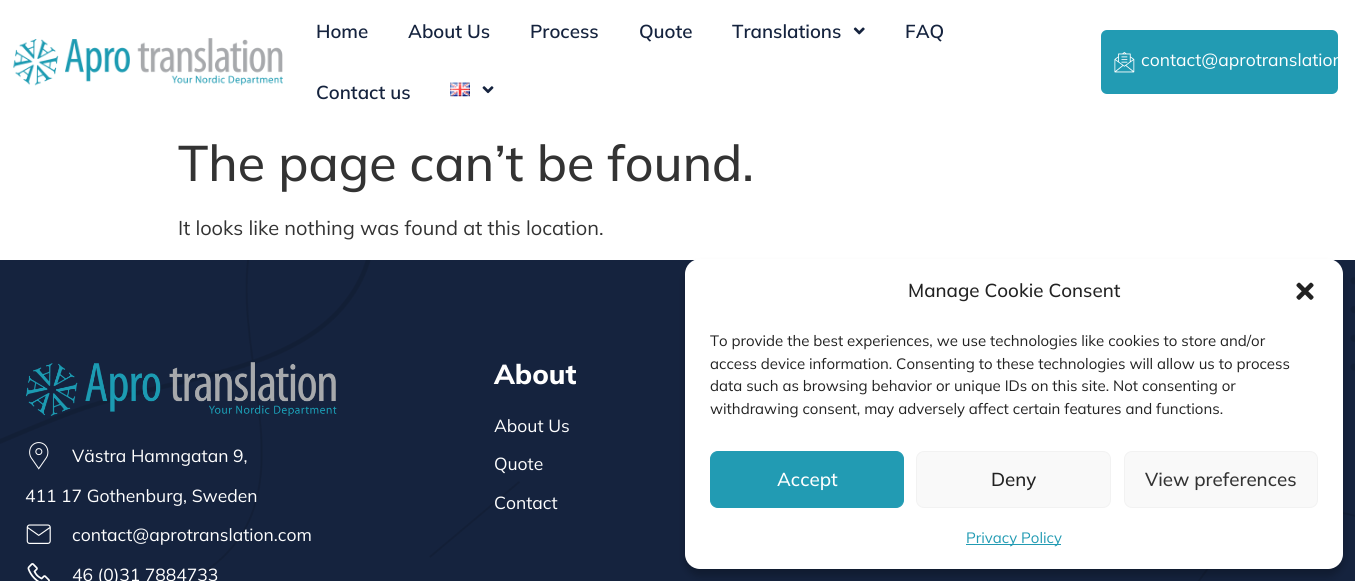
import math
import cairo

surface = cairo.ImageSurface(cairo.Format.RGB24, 1355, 581)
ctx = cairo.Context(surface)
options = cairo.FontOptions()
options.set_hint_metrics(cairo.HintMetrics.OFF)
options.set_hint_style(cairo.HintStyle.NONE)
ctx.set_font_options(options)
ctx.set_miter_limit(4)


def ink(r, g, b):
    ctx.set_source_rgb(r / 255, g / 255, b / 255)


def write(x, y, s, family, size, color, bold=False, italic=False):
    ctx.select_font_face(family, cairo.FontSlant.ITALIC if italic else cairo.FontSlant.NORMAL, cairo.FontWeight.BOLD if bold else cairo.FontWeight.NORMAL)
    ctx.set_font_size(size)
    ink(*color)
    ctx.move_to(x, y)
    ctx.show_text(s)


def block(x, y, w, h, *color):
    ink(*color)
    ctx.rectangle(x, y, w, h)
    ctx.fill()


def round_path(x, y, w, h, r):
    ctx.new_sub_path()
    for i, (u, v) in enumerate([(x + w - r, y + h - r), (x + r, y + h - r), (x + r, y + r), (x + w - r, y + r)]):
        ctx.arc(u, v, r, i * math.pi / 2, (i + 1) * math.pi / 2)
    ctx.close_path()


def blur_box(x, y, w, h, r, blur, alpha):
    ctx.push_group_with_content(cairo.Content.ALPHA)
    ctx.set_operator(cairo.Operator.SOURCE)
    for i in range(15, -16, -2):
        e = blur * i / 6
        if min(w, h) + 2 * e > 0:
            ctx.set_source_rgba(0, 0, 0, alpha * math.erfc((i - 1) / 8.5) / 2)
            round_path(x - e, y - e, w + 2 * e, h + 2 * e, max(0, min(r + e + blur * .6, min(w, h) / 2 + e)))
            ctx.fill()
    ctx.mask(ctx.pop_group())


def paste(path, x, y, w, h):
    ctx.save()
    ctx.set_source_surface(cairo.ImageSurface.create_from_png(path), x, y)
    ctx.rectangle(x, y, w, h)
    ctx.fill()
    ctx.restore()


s1 = dict(family="Mulish SemiBold", size=18.75, color=(21, 35, 62))
s2 = dict(family="Mulish", size=17.5, color=(255, 255, 255))
s3 = dict(family="Mulish Medium", size=50, color=(51, 51, 51))
s4 = dict(family="Mulish", size=20, color=(51, 51, 51))
s5 = dict(family="Mulish ExtraBold", size=27.5, color=(255, 255, 255))
s6 = dict(family="Mulish Medium", size=18.75, color=(34, 34, 34))
s7 = dict(family="Mulish", size=15, color=(34, 34, 34))
s8 = dict(family="Mulish Medium", size=18.75, color=(255, 255, 255))
s9 = dict(family="Mulish Medium", size=18.75, color=(51, 51, 51))
s10 = dict(family="Mulish", size=15, color=(34, 155, 179))

ink(255, 255, 255)
ctx.paint()
paste("pic1.png", 13, 38, 270, 48)
write(316, 38, "Home", **s1)
write(408, 38, "About Us", **s1)
write(530, 38, "Process", **s1)
write(639, 38, "Quote", **s1)
write(732, 38, "Translations", **s1)
paste("pic2.png", 853, 27, 12, 8)
write(905, 38, "FAQ", **s1)
write(316, 99, "Contact us", **s1)
paste("pic3.png", 450, 82, 20, 15)
paste("pic4.png", 482, 86, 12, 8)
ink(34, 155, 179)
round_path(1101, 30, 237, 64, 6)
ctx.fill()
paste("pic5.png", 1114, 52, 21, 21)
write(1141, 66, "contact@aprotranslation", **s2)
write(178, 181, "The page can’t be found.", **s3)
write(178, 235, "It looks like nothing was found at this location.", **s4)
block(0, 260, 1355, 321, 21, 35, 62)
paste("pic6.png", 0, 260, 1355, 321)
paste("pic7.png", 26, 362, 311, 54)
paste("pic8.png", 29, 442, 20, 28)
write(72, 462, "Västra Hamngatan 9,", **s2)
write(25, 502, "411 17 Gothenburg, Sweden", **s2)
paste("pic9.png", 26, 524, 25, 20)
write(72, 541, "contact@aprotranslation.com", **s2)
paste("pic10.png", 27, 563, 23, 18)
write(72, 581, "46 (0)31 7884733", **s2)
write(494, 384, "About", **s5)
write(494, 432, "About Us", **s2)
write(494, 470, "Quote", **s2)
write(494, 509, "Contact", **s2)
ink(0, 0, 0)
blur_box(685, 266, 658, 310, 15, 4, 0.23)
ink(255, 255, 255)
round_path(685, 259, 658, 310, 15)
ctx.fill()
write(908, 297, "Manage Cookie Consent", **s6)
paste("pic11.png", 1296, 282, 18, 18)
write(710, 346, "To provide the best experiences, we use technologies like cookies to store and/or", **s7)
write(710, 369, "access device information. Consenting to these technologies will allow us to process", **s7)
write(710, 391, "data such as browsing behavior or unique IDs on this site. Not consenting or", **s7)
write(710, 414, "withdrawing consent, may adversely affect certain features and functions.", **s7)
ink(34, 155, 179)
round_path(710.5, 451.5, 193, 56, 7.5)
ctx.fill_preserve()
ctx.set_line_width(1)
ctx.stroke()
write(777, 486, "Accept", **s8)
ink(249, 249, 249)
round_path(916.5, 451.5, 194, 56, 7.5)
ctx.fill_preserve()
ink(242, 242, 242)
ctx.stroke()
write(991, 486, "Deny", **s6)
ink(249, 249, 249)
round_path(1124.5, 451.5, 193, 56, 7.5)
ctx.fill_preserve()
ink(242, 242, 242)
ctx.stroke()
write(1145, 486, "View preferences", **s9)
block(966, 544, 95, 1, 34, 155, 179)
write(966, 543, "Privacy Policy", **s10)
surface.write_to_png("screenshot.png")
